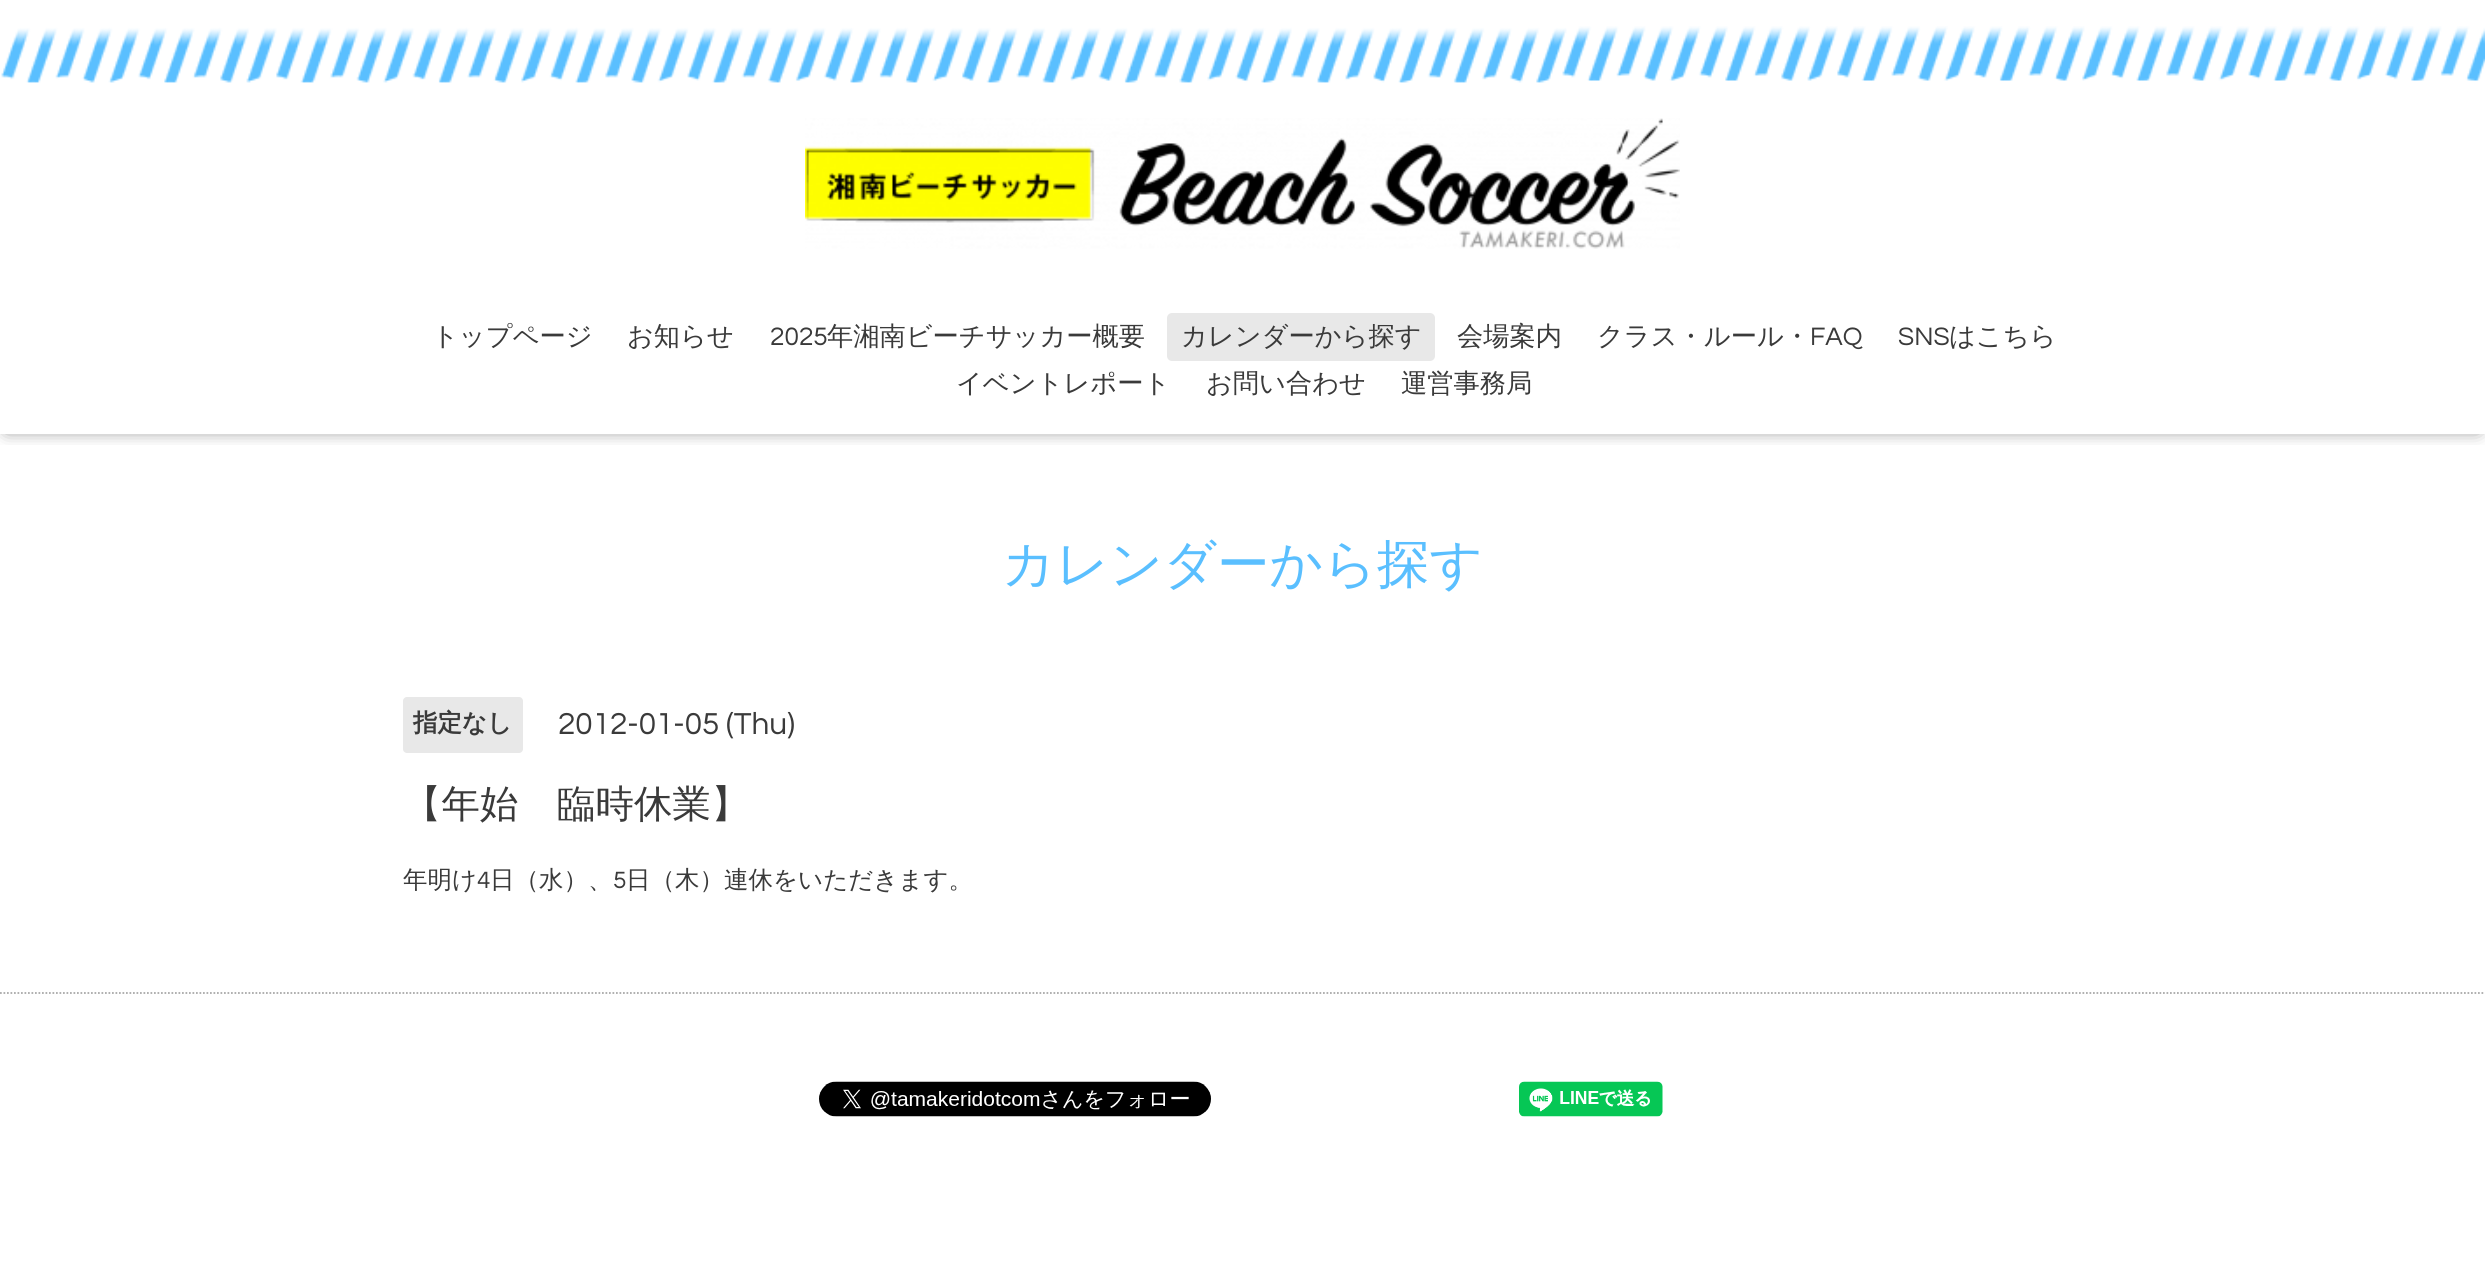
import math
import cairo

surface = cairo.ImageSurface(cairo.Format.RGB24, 2485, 1272)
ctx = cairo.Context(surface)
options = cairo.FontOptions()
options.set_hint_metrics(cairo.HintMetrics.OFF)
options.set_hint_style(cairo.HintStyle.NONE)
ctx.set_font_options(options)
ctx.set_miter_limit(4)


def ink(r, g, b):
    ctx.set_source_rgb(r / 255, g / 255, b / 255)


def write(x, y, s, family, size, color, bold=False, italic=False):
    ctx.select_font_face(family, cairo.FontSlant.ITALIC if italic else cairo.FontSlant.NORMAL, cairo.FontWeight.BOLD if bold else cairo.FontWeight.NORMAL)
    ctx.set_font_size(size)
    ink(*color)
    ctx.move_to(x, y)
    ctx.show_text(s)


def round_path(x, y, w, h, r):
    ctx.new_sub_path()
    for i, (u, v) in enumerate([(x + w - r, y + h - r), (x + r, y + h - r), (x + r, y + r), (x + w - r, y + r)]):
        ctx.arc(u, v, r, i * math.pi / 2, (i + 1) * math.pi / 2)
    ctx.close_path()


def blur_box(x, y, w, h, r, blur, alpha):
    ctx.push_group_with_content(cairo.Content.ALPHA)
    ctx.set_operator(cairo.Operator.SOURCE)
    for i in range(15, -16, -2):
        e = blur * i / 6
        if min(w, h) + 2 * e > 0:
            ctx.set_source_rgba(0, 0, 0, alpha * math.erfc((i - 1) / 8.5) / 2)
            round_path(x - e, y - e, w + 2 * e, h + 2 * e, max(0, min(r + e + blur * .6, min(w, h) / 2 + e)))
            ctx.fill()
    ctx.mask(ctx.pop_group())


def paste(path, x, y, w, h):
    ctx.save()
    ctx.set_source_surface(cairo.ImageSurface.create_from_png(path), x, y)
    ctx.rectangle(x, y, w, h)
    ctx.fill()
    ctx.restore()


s1 = dict(family="WenQuanYi Zen Hei Medium", size=26.25, color=(58, 58, 58))
s2 = dict(family="Questrial", size=26.25, color=(58, 58, 58))
s3 = dict(family="WenQuanYi Zen Hei Medium", size=52.5, color=(90, 191, 255))
s4 = dict(family="WenQuanYi Zen Hei", size=24.5, color=(58, 58, 58), bold=True)
s5 = dict(family="Questrial", size=31.5, color=(58, 58, 58))
s6 = dict(family="WenQuanYi Zen Hei Medium", size=38.5, color=(58, 58, 58))
s7 = dict(family="WenQuanYi Zen Hei Medium", size=24.5, color=(58, 58, 58))
s8 = dict(family="Questrial", size=24.5, color=(58, 58, 58))

ink(255, 255, 255)
ctx.paint()
ctx.save()
ctx.rectangle(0, 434, 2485, 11)
ctx.clip()
ink(0, 0, 0)
blur_box(7, 9, 2471, 420, 0, 9, 0.6)
ctx.restore()
paste("pic1.png", 1, 26, 2484, 57)
paste("pic2.png", 805, 118, 875, 131)
write(432, 345, "トップページ", **s1)
write(627, 345, "お知らせ", **s1)
write(770, 345, "2025", **s2)
write(827, 345, "年湘南ビーチサッカー概要", **s1)
ink(232, 232, 232)
round_path(1167, 313, 268, 48, 5)
ctx.fill()
write(1181, 345, "カレンダーから探す", **s1)
write(1457, 345, "会場案内", **s1)
write(1597, 345, "クラス・ルール・", **s1)
write(1810, 345, "FAQ", **s2)
write(1898, 345, "SNS", **s2)
write(1949, 345, "はこちら", **s1)
write(956, 392, "イベントレポート", **s1)
write(1206, 392, "お問い合わせ", **s1)
write(1401, 392, "運営事務局", **s1)
write(1002, 582, "カレンダーから探す", **s3)
ink(232, 232, 232)
round_path(403, 697, 120, 56, 4)
ctx.fill()
write(413, 731, "指定なし", **s4)
write(558, 734, "2012-01-05 (Thu)", **s5)
write(403, 817, "【年始　臨時休業】", **s6)
write(403, 888, "年明け", **s7)
write(477, 888, "4", **s8)
write(490, 888, "日（水）、", **s7)
write(613, 888, "5", **s8)
write(626, 888, "日（木）連休をいただきます。", **s7)
ctx.new_path()
ctx.move_to(0, 993)
ctx.line_to(2485, 993)
ink(169, 169, 169)
ctx.set_line_width(1.8)
ctx.set_dash([1.75, 1.75])
ctx.stroke()
paste("pic3.png", 819, 1081, 392, 36)
paste("pic4.png", 1519, 1081, 144, 36)
surface.write_to_png("screenshot.png")
